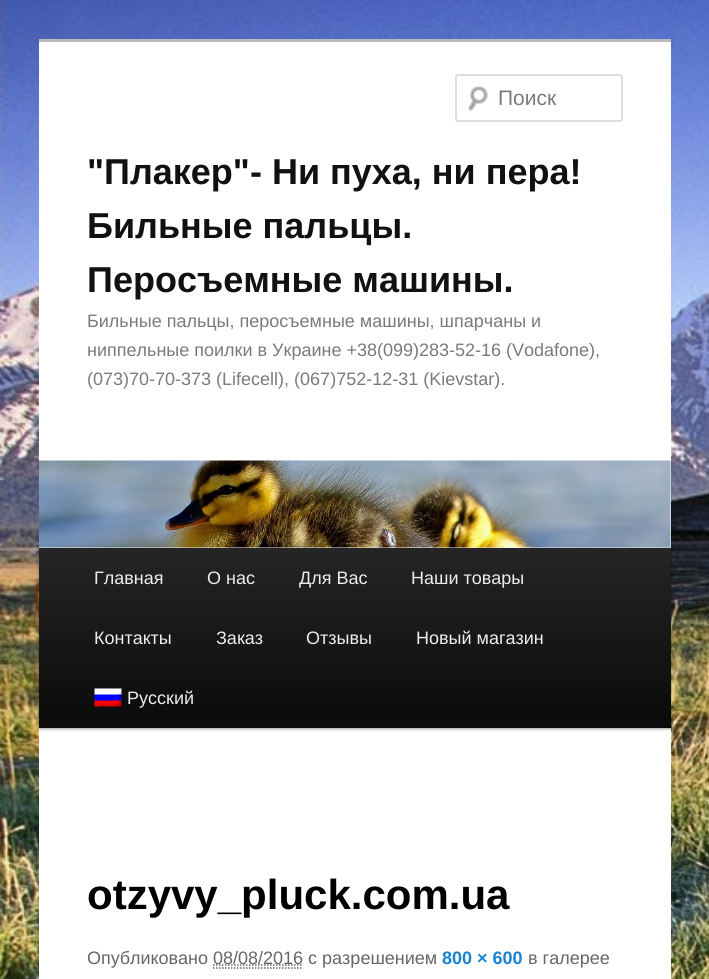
import math
import cairo

surface = cairo.ImageSurface(cairo.Format.RGB24, 709, 979)
ctx = cairo.Context(surface)
options = cairo.FontOptions()
options.set_hint_metrics(cairo.HintMetrics.OFF)
options.set_hint_style(cairo.HintStyle.NONE)
ctx.set_font_options(options)
ctx.set_miter_limit(4)


def ink(r, g, b):
    ctx.set_source_rgb(r / 255, g / 255, b / 255)


def write(x, y, s, family, size, color, bold=False, italic=False):
    ctx.select_font_face(family, cairo.FontSlant.ITALIC if italic else cairo.FontSlant.NORMAL, cairo.FontWeight.BOLD if bold else cairo.FontWeight.NORMAL)
    ctx.set_font_size(size)
    ink(*color)
    ctx.move_to(x, y)
    ctx.show_text(s)


def block(x, y, w, h, *color):
    ink(*color)
    ctx.rectangle(x, y, w, h)
    ctx.fill()


def round_path(x, y, w, h, r):
    ctx.new_sub_path()
    for i, (u, v) in enumerate([(x + w - r, y + h - r), (x + r, y + h - r), (x + r, y + r), (x + w - r, y + r)]):
        ctx.arc(u, v, r, i * math.pi / 2, (i + 1) * math.pi / 2)
    ctx.close_path()


def blur_box(x, y, w, h, r, blur, alpha):
    ctx.push_group_with_content(cairo.Content.ALPHA)
    ctx.set_operator(cairo.Operator.SOURCE)
    for i in range(15, -16, -2):
        e = blur * i / 6
        if min(w, h) + 2 * e > 0:
            ctx.set_source_rgba(0, 0, 0, alpha * math.erfc((i - 1) / 8.5) / 2)
            round_path(x - e, y - e, w + 2 * e, h + 2 * e, max(0, min(r + e + blur * .6, min(w, h) / 2 + e)))
            ctx.fill()
    ctx.mask(ctx.pop_group())


def paste(path, x, y, w, h):
    ctx.save()
    ctx.set_source_surface(cairo.ImageSurface.create_from_png(path), x, y)
    ctx.rectangle(x, y, w, h)
    ctx.fill()
    ctx.restore()


s1 = dict(family="Liberation Sans", size=21, color=(122, 122, 122))
s2 = dict(family="Liberation Sans", size=36, color=(17, 17, 17), bold=True)
s3 = dict(family="Liberation Sans", size=18, color=(122, 122, 122))
s4 = dict(family="Liberation Sans", size=18, color=(238, 238, 238))
s5 = dict(family="Liberation Sans", size=42, color=(0, 0, 0), bold=True)
s6 = dict(family="Liberation Sans", size=18, color=(102, 102, 102))
s7 = dict(family="Liberation Sans", size=18, color=(25, 130, 209), bold=True)

ink(255, 255, 255)
ctx.paint()
paste("pic1.png", 0, 0, 709, 979)
block(39, 42, 632, 937, 255, 255, 255)
block(39, 39, 632, 3, 187, 187, 187)
paste("pic2.png", 468, 85, 20, 27)
ink(230, 230, 230)
ctx.new_path()
ctx.move_to(458, 76)
ctx.line_to(620, 76)
ctx.line_to(621, 78)
ctx.line_to(621, 76)
ctx.curve_to(621, 76, 620, 75, 620, 75)
ctx.line_to(458, 75)
ctx.curve_to(457, 75, 456, 76, 456, 76)
ctx.line_to(456, 78)
ctx.curve_to(456, 77, 457, 76, 458, 76)
ctx.close_path()
ctx.fill()
round_path(456, 75, 166, 46, 2)
ink(221, 221, 221)
ctx.stroke()
write(498, 105, "Поиск", **s1)
write(87, 184, "\"Плакер\"- Ни пуха, ни пера!", **s2)
write(87, 238, "Бильные пальцы.", **s2)
write(87, 292, "Перосъемные машины.", **s2)
write(87, 327, "Бильные пальцы, перосъемные машины, шпарчаны и", **s3)
write(87, 356, "ниппельные поилки в Украине +38(099)283-52-16 (Vodafone),", **s3)
write(87, 385, "(073)70-70-373 (Lifecell), (067)752-12-31 (Kievstar).", **s3)
ink(0, 0, 0)
blur_box(39, 549, 632, 180, 0, 1.5, 0.4)
paste("pic3.png", 39, 460, 632, 88)
gradient = cairo.LinearGradient(355, 548, 355, 728)
gradient.add_color_stop_rgba(0, 0.145, 0.145, 0.145, 1)
gradient.add_color_stop_rgba(1, 0.039, 0.039, 0.039, 1)
ctx.set_source(gradient)
ctx.rectangle(39, 548, 632, 180)
ctx.fill()
write(94, 584, "Главная", **s4)
write(207, 584, "О нас", **s4)
write(299, 584, "Для Вас", **s4)
write(411, 584, "Наши товары", **s4)
write(94, 644, "Контакты", **s4)
write(216, 644, "Заказ", **s4)
write(306, 644, "Отзывы", **s4)
write(416, 644, "Новый магазин", **s4)
paste("pic4.png", 94, 688, 28, 19)
write(127, 704, "Русский", **s4)
write(87, 909, "otzyvy_pluck.com.ua", **s5)
write(87, 964, "Опубликовано", **s6)
ctx.new_path()
ctx.move_to(213, 968)
ctx.line_to(303, 968)
ctx.set_line_width(1.5)
ctx.set_dash([1.5, 1.5])
ctx.stroke()
ctx.new_path()
ctx.move_to(213, 965)
ctx.line_to(303, 965)
ctx.stroke()
write(213, 964, "08/08/2016 с разрешением", **s6)
write(442, 964, "800 × 600", **s7)
write(528, 964, "в галерее", **s6)
surface.write_to_png("screenshot.png")
